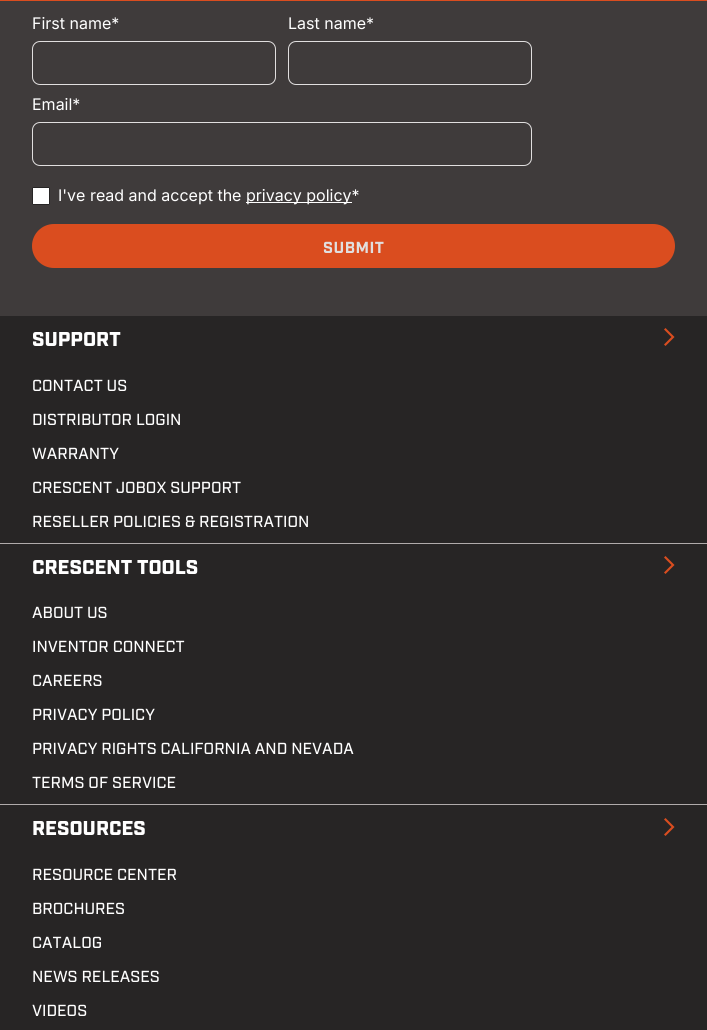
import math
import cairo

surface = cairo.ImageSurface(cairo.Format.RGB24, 707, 1030)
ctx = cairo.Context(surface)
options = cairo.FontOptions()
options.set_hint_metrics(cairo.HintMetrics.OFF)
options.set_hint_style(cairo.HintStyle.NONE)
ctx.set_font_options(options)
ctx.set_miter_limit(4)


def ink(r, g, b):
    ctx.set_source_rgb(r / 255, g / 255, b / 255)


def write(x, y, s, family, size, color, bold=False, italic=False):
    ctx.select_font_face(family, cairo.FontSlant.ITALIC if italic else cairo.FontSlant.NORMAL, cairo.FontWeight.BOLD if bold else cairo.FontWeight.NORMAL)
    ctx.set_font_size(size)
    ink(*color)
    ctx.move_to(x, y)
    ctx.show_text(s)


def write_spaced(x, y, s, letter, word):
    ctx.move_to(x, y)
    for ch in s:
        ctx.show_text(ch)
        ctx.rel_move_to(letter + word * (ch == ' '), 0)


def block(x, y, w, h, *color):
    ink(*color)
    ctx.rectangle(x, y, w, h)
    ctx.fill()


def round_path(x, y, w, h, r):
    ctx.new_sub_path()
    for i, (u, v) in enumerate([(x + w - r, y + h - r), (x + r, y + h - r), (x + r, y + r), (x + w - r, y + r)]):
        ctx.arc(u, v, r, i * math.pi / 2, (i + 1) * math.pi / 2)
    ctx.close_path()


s1 = dict(family="Inter", size=16, color=(255, 255, 255))
s2 = dict(family="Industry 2", size=20, color=(255, 255, 255))
s3 = dict(family="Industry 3", size=16, color=(255, 255, 255))

ink(63, 59, 59)
ctx.paint()
block(0, 0, 707, 1, 218, 77, 31)
write(32, 29, "First name*", **s1)
round_path(32.5, 41.5, 243, 43, 7.5)
ink(225, 223, 223)
ctx.set_line_width(1)
ctx.stroke()
write(288, 29, "Last name*", **s1)
round_path(288.5, 41.5, 243, 43, 7.5)
ink(225, 223, 223)
ctx.stroke()
write(32, 110, "Email*", **s1)
round_path(32.5, 122.5, 499, 43, 7.5)
ink(225, 223, 223)
ctx.stroke()
ink(255, 255, 255)
round_path(32.5, 187.5, 17, 17, 0.5)
ctx.fill_preserve()
ink(39, 37, 37)
ctx.stroke()
write(58, 201, "I've read and accept the", **s1)
block(246, 202, 106, 1, 255, 255, 255)
write(246, 201, "privacy policy*", **s1)
ink(218, 77, 31)
round_path(32, 224, 643, 44, 22)
ctx.fill()
ctx.select_font_face("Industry")
ink(225, 223, 223)
write_spaced(323, 253, "SUBMIT", 0.5, 0)
block(0, 316, 707, 714, 39, 37, 37)
block(0, 543, 707, 1, 176, 171, 171)
write(32, 346, "SUPPORT", **s2)
ink(218, 77, 31)
ctx.new_path()
ctx.move_to(664, 329.5)
ctx.line_to(665.5, 328)
ctx.line_to(674.5, 337)
ctx.line_to(665.5, 346)
ctx.line_to(664, 344.5)
ctx.line_to(671.5, 337)
ctx.close_path()
ctx.fill()
write(32, 391, "CONTACT US", **s3)
write(32, 425, "DISTRIBUTOR LOGIN", **s3)
write(32, 459, "WARRANTY", **s3)
write(32, 493, "CRESCENT JOBOX SUPPORT", **s3)
write(32, 527, "RESELLER POLICIES & REGISTRATION", **s3)
block(0, 804, 707, 1, 176, 171, 171)
write(32, 574, "CRESCENT TOOLS", **s2)
ink(218, 77, 31)
ctx.new_path()
ctx.move_to(664, 557.5)
ctx.line_to(665.5, 556)
ctx.line_to(674.5, 565)
ctx.line_to(665.5, 574)
ctx.line_to(664, 572.5)
ctx.line_to(671.5, 565)
ctx.close_path()
ctx.fill()
write(32, 618, "ABOUT US", **s3)
write(32, 652, "INVENTOR CONNECT", **s3)
write(32, 686, "CAREERS", **s3)
write(32, 720, "PRIVACY POLICY", **s3)
write(32, 754, "PRIVACY RIGHTS CALIFORNIA AND NEVADA", **s3)
write(32, 788, "TERMS OF SERVICE", **s3)
write(32, 835, "RESOURCES", **s2)
ink(218, 77, 31)
ctx.new_path()
ctx.move_to(664, 819.5)
ctx.line_to(665.5, 818)
ctx.line_to(674.5, 827)
ctx.line_to(665.5, 836)
ctx.line_to(664, 834.5)
ctx.line_to(671.5, 827)
ctx.close_path()
ctx.fill()
write(32, 880, "RESOURCE CENTER", **s3)
write(32, 914, "BROCHURES", **s3)
write(32, 948, "CATALOG", **s3)
write(32, 982, "NEWS RELEASES", **s3)
write(32, 1016, "VIDEOS", **s3)
surface.write_to_png("screenshot.png")
